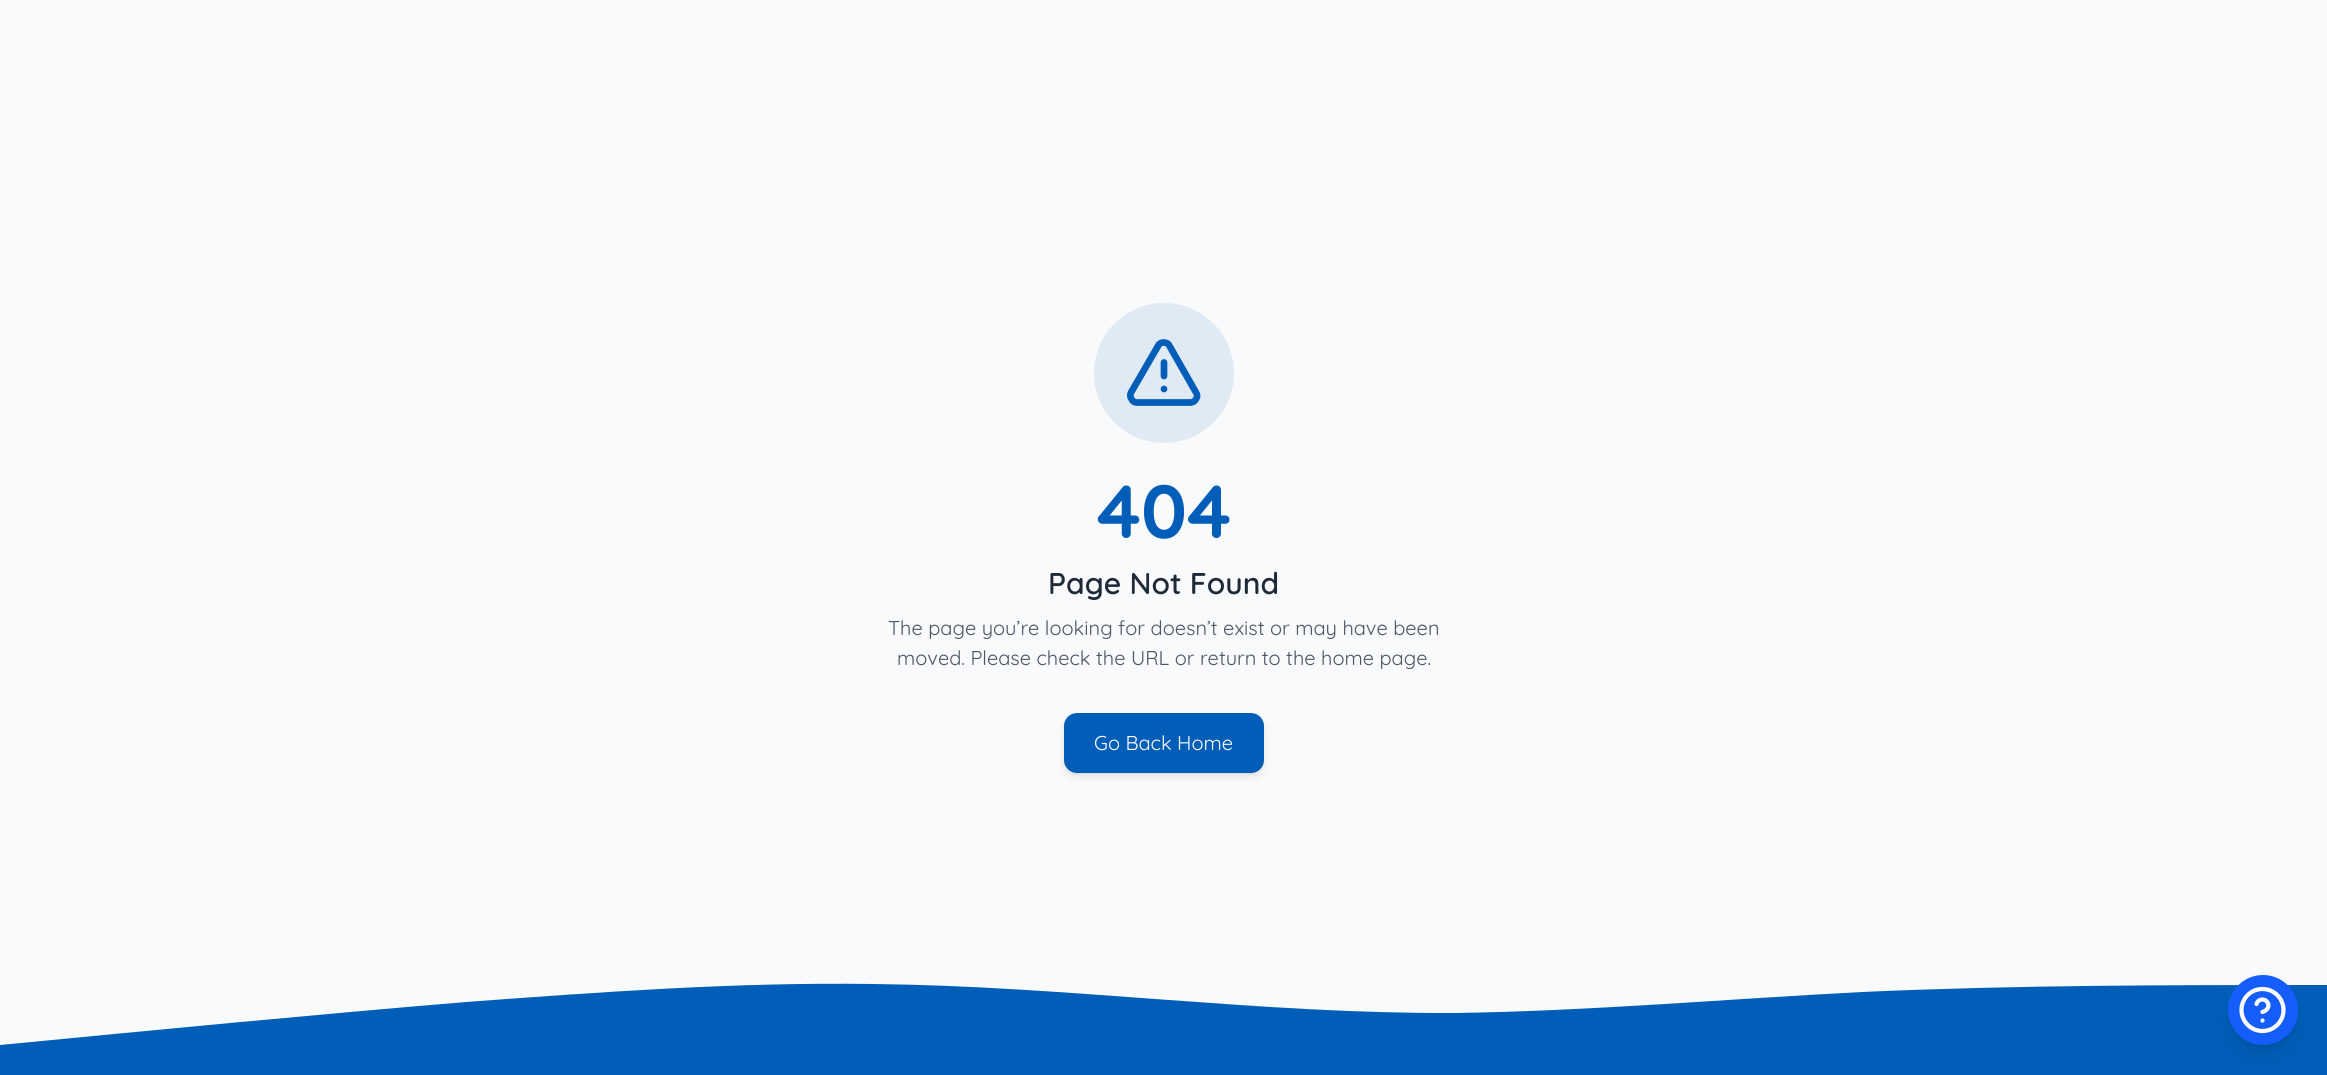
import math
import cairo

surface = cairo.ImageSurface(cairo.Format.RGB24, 2327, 1075)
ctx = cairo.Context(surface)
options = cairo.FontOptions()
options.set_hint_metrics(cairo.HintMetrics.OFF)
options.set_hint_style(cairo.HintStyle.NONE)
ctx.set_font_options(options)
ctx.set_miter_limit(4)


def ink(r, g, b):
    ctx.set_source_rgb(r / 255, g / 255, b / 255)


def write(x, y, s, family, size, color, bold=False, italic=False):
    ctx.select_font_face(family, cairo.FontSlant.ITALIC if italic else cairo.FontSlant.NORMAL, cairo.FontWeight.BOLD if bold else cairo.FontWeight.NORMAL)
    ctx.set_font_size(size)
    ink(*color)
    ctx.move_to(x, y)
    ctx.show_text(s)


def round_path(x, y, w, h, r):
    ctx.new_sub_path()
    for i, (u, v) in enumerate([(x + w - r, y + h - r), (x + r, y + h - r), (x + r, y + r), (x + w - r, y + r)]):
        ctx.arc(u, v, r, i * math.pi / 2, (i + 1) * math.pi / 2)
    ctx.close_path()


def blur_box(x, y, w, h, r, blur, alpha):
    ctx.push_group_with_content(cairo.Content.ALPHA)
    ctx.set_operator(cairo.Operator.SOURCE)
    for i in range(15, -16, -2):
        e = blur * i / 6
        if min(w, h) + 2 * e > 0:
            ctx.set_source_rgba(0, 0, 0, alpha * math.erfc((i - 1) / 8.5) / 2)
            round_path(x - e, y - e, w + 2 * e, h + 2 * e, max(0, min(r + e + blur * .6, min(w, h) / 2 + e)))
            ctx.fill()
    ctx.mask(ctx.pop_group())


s1 = dict(family="Quicksand", size=75, color=(0, 94, 184), bold=True)
s2 = dict(family="Quicksand SemiBold", size=30, color=(30, 41, 57))
s3 = dict(family="Quicksand", size=20, color=(74, 85, 101))
s4 = dict(family="Quicksand", size=20, color=(255, 255, 255))

ink(249, 250, 251)
ctx.paint()
ink(224, 234, 244)
ctx.arc(1164, 373, 70, 0, 2 * math.pi)
ctx.fill()
ctx.new_path()
ctx.move_to(1196, 392.5)
ctx.line_to(1169.5, 346)
ctx.curve_to(1168.5, 343.5, 1166, 342.5, 1163.5, 342.5)
ctx.curve_to(1161.5, 342.5, 1159, 343.5, 1158, 346)
ctx.line_to(1131, 392.5)
ctx.curve_to(1130, 394.5, 1130, 397, 1131.5, 399)
ctx.curve_to(1132.5, 401.5, 1134.5, 402.5, 1137, 402.5)
ctx.line_to(1190.5, 402.5)
ctx.curve_to(1193, 402.5, 1195, 401, 1196, 399)
ctx.curve_to(1197.5, 397, 1197.5, 394.5, 1196, 392.5)
ink(0, 94, 184)
ctx.set_line_width(6.7)
ctx.set_line_cap(cairo.LineCap.ROUND)
ctx.set_line_join(cairo.LineJoin.ROUND)
ctx.stroke()
ctx.new_path()
ctx.move_to(1164, 362.5)
ctx.line_to(1164, 376)
ctx.move_to(1164, 389)
ctx.line_to(1164, 389)
ctx.stroke()
write(1097, 538, "404", **s1)
write(1048, 594, "Page Not Found", **s2)
write(888, 635, "The page you’re looking for doesn’t exist or may have been", **s3)
write(897, 665, "moved. Please check the URL or return to the home page.", **s3)
ink(0, 0, 0)
blur_box(1066, 718, 195, 55, 10, 2.5, 0.1)
blur_box(1065, 719, 198, 57, 11, 4, 0.1)
ink(0, 94, 184)
round_path(1064, 713, 200, 60, 13)
ctx.fill()
write(1094, 750, "Go Back Home", **s4)
ink(0, 94, 184)
ctx.new_path()
ctx.move_to(0, 1045)
ctx.curve_to(155, 1030, 310, 1015, 466, 1002)
ctx.curve_to(601, 992, 737, 982, 873, 984)
ctx.curve_to(1067, 986, 1260, 1014, 1455, 1013)
ctx.curve_to(1591, 1011, 1726, 999, 1862, 992)
ctx.curve_to(2017, 985, 2172, 985, 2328, 985)
ctx.line_to(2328, 1075)
ctx.line_to(0, 1075)
ctx.close_path()
ctx.fill()
ink(0, 0, 0)
blur_box(2233, 985, 60, 60, 30, 4, 0.1)
blur_box(2231, 991, 63, 63, 31.5, 9.5, 0.1)
ink(21, 93, 252)
ctx.arc(2263, 1010, 35, 0, 2 * math.pi)
ctx.fill()
ctx.arc(2262.5, 1010, 21, 0, 2 * math.pi)
ink(255, 255, 255)
ctx.set_line_width(4.2)
ctx.set_line_cap(cairo.LineCap.BUTT)
ctx.set_line_join(cairo.LineJoin.MITER)
ctx.stroke()
ctx.new_path()
ctx.move_to(2256.5, 1004)
ctx.curve_to(2257, 1002.5, 2258, 1001, 2259, 1000.5)
ctx.curve_to(2266.5, 996, 2274, 1008, 2262.5, 1012)
ctx.move_to(2262.5, 1020.5)
ctx.line_to(2262.5, 1020.5)
ctx.set_line_cap(cairo.LineCap.ROUND)
ctx.set_line_join(cairo.LineJoin.ROUND)
ctx.stroke()
surface.write_to_png("screenshot.png")
